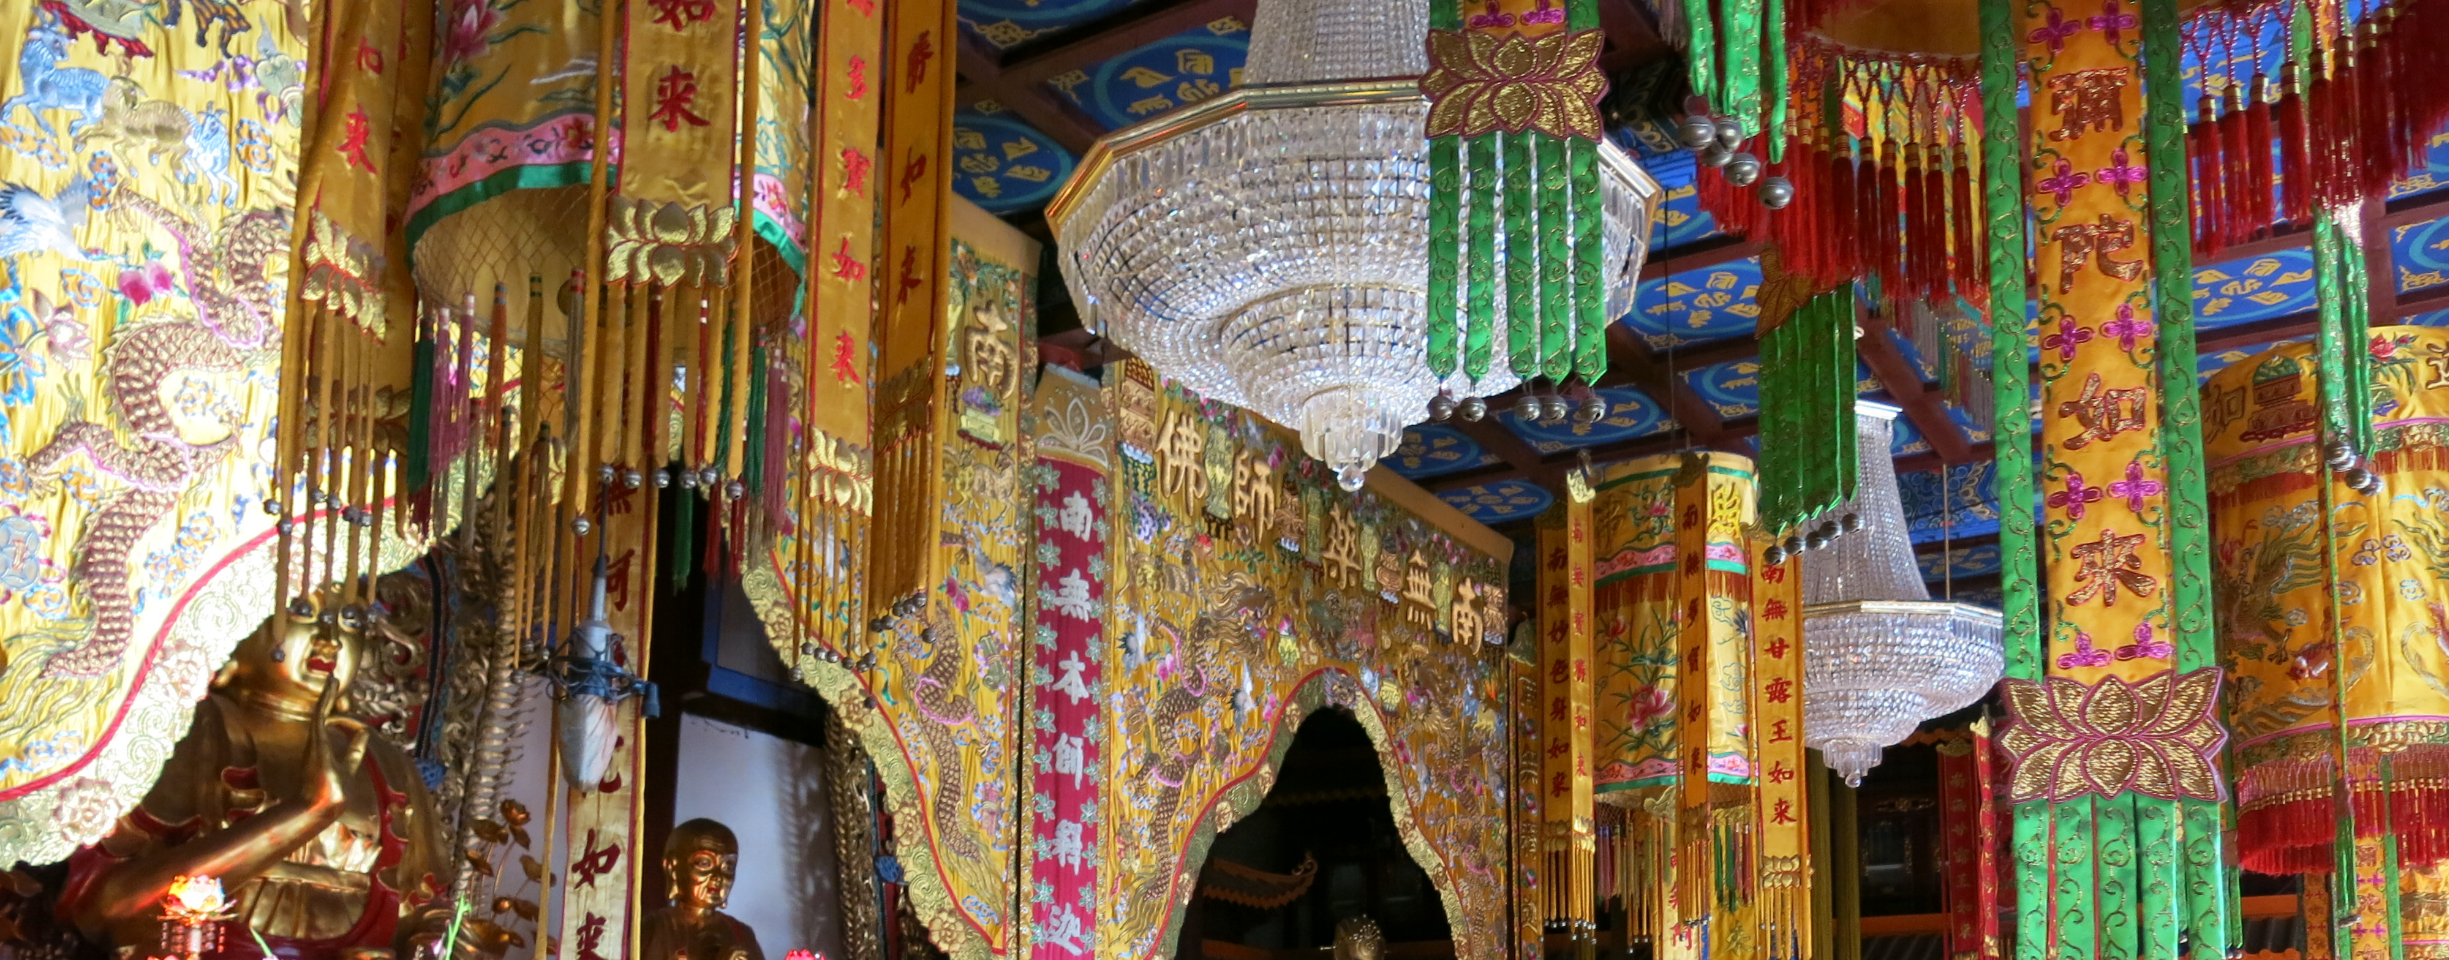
import math
import cairo

surface = cairo.ImageSurface(cairo.Format.RGB24, 2449, 960)
ctx = cairo.Context(surface)
options = cairo.FontOptions()
options.set_hint_metrics(cairo.HintMetrics.OFF)
options.set_hint_style(cairo.HintStyle.NONE)
ctx.set_font_options(options)
ctx.set_miter_limit(4)


def ink(r, g, b):
    ctx.set_source_rgb(r / 255, g / 255, b / 255)


def paste(path, x, y, w, h):
    ctx.save()
    ctx.set_source_surface(cairo.ImageSurface.create_from_png(path), x, y)
    ctx.rectangle(x, y, w, h)
    ctx.fill()
    ctx.restore()


ink(255, 255, 255)
ctx.paint()
paste("pic1.png", 0, 0, 2449, 960)
surface.write_to_png("screenshot.png")
